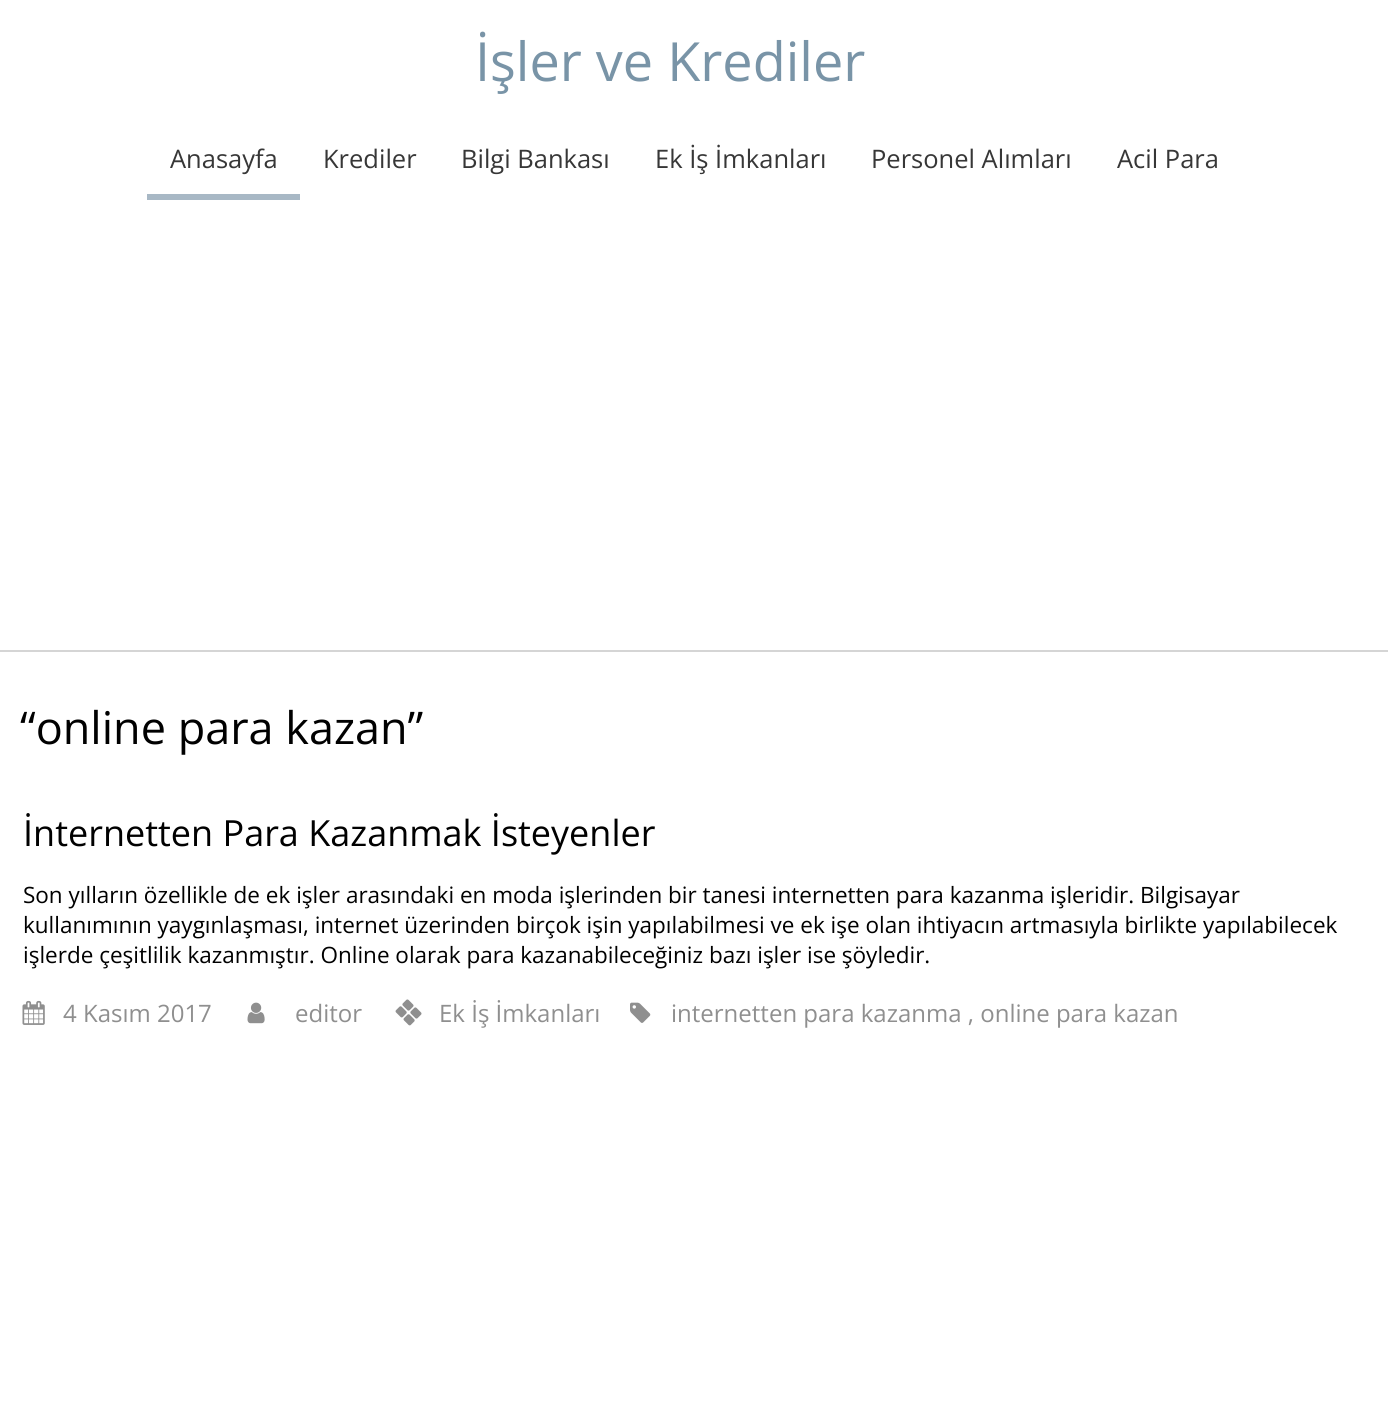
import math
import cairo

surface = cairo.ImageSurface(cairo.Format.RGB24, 1388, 1424)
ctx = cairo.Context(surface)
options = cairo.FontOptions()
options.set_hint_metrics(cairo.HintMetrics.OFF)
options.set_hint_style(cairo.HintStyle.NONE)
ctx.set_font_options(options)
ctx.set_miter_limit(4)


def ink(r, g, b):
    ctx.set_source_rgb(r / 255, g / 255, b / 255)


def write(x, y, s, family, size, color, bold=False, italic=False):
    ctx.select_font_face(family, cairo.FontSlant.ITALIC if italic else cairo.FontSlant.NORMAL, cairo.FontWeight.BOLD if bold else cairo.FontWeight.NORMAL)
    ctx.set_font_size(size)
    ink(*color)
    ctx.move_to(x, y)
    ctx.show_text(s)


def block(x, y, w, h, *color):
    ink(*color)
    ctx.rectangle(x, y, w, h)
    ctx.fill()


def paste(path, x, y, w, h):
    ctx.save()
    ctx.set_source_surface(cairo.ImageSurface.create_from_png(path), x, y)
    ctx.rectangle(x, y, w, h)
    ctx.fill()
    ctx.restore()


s1 = dict(family="Open Sans", size=54, color=(121, 148, 167))
s2 = dict(family="Open Sans", size=25.5, color=(55, 55, 55))
s3 = dict(family="Open Sans", size=45, color=(0, 0, 0))
s4 = dict(family="Open Sans", size=36, color=(0, 0, 0))
s5 = dict(family="Open Sans", size=22.5, color=(0, 0, 0))
s6 = dict(family="Open Sans", size=24, color=(143, 143, 143))

ink(255, 255, 255)
ctx.paint()
block(0, 650, 1388, 2, 213, 213, 213)
write(475, 81, "İşler ve Krediler", **s1)
write(170, 168, "Anasayfa", **s2)
write(323, 168, "Krediler", **s2)
write(461, 168, "Bilgi Bankası", **s2)
write(655, 168, "Ek İş İmkanları", **s2)
write(871, 168, "Personel Alımları", **s2)
write(1117, 168, "Acil Para", **s2)
block(147, 194, 153, 6, 168, 184, 197)
write(20, 744, "“online para kazan”", **s3)
write(23, 846, "İnternetten Para Kazanmak İsteyenler", **s4)
write(23, 903, "Son yılların özellikle de ek işler arasındaki en moda işlerinden bir tanesi internetten para kazanma işleridir. Bilgisayar", **s5)
write(23, 933, "kullanımının yaygınlaşması, internet üzerinden birçok işin yapılabilmesi ve ek işe olan ihtiyacın artmasıyla birlikte yapılabilecek", **s5)
write(23, 963, "işlerde çeşitlilik kazanmıştır. Online olarak para kazanabileceğiniz bazı işler ise şöyledir.", **s5)
paste("pic1.png", 22, 1000, 23, 25)
write(63, 1022, "4 Kasım 2017", **s6)
paste("pic2.png", 247, 1002, 18, 22)
write(295, 1022, "editor", **s6)
paste("pic3.png", 395, 999, 27, 27)
write(439, 1022, "Ek İş İmkanları", **s6)
paste("pic4.png", 630, 1002, 21, 21)
write(671, 1022, "internetten para kazanma , online para kazan", **s6)
surface.write_to_png("screenshot.png")
